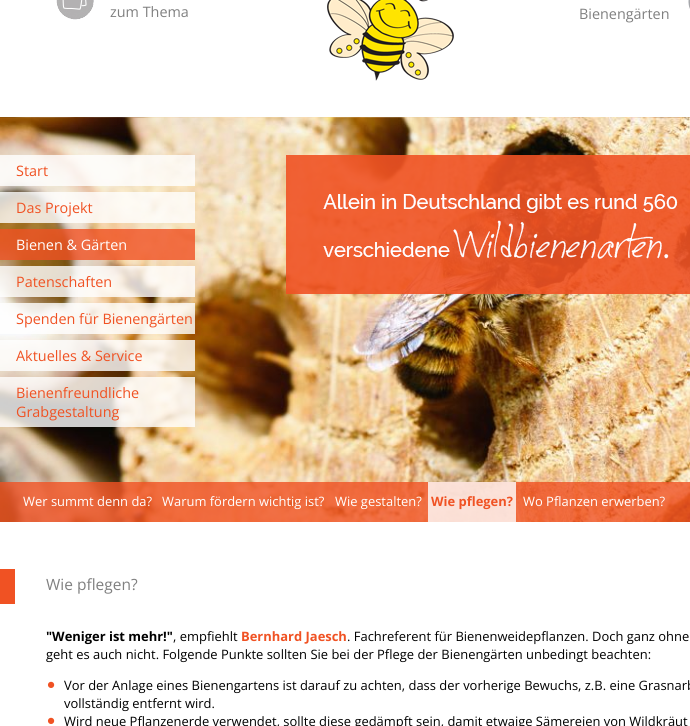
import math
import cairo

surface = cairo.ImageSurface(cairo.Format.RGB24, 690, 726)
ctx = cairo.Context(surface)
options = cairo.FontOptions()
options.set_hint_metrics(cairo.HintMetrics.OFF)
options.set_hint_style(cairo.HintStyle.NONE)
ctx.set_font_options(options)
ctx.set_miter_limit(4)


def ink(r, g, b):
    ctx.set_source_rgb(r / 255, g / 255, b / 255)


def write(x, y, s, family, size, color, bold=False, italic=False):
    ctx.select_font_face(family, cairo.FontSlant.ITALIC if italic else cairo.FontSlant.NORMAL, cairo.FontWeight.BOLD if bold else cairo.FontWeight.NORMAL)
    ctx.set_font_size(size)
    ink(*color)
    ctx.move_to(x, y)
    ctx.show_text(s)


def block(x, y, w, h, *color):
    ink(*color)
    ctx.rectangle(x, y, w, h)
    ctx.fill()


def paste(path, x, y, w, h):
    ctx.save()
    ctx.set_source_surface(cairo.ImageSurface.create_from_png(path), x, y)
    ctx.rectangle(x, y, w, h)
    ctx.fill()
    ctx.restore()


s1 = dict(family="Open Sans", size=14.4, color=(128, 128, 128))
s2 = dict(family="Open Sans", size=14.4, color=(240, 82, 35))
s3 = dict(family="Open Sans", size=14.4, color=(255, 255, 255))
s4 = dict(family="Open Sans", size=12.95, color=(255, 255, 255))
s5 = dict(family="Open Sans", size=12.95, color=(240, 82, 35), bold=True)
s6 = dict(family="Open Sans", size=15.5, color=(128, 128, 128))
s7 = dict(family="Open Sans", size=12.95, color=(0, 0, 0), bold=True)
s8 = dict(family="Open Sans", size=12.95, color=(0, 0, 0))

ink(255, 255, 255)
ctx.paint()
paste("pic1.png", 56, 0, 38, 20)
write(110, 17, "zum Thema", **s1)
paste("pic2.png", 327, 0, 127, 81)
paste("pic3.png", 688, 0, 2, 9)
write(579, 19, "Bienengärten", **s1)
paste("pic4.png", 0, 117, 690, 405)
ctx.set_source_rgba(1, 1, 1, 0.8)
ctx.rectangle(0, 155, 195, 31)
ctx.fill()
write(16, 176, "Start", **s2)
ctx.set_source_rgba(1, 1, 1, 0.8)
ctx.rectangle(0, 192, 195, 31)
ctx.fill()
write(16, 213, "Das Projekt", **s2)
ctx.set_source_rgba(0.941, 0.322, 0.137, 0.8)
ctx.rectangle(0, 229, 195, 31)
ctx.fill()
write(16, 250, "Bienen & Gärten", **s3)
ctx.set_source_rgba(1, 1, 1, 0.8)
ctx.rectangle(0, 266, 195, 31)
ctx.fill()
write(16, 287, "Patenschaften", **s2)
ctx.set_source_rgba(1, 1, 1, 0.8)
ctx.rectangle(0, 303, 195, 31)
ctx.fill()
write(16, 324, "Spenden für Bienengärten", **s2)
ctx.set_source_rgba(1, 1, 1, 0.8)
ctx.rectangle(0, 340, 195, 31)
ctx.fill()
write(16, 361, "Aktuelles & Service", **s2)
ctx.set_source_rgba(1, 1, 1, 0.8)
ctx.rectangle(0, 377, 195, 50)
ctx.fill()
write(16, 398, "Bienenfreundliche", **s2)
write(16, 417, "Grabgestaltung", **s2)
paste("pic5.png", 286, 155, 404, 139)
ctx.set_source_rgba(0.941, 0.322, 0.137, 0.8)
ctx.rectangle(0, 482, 690, 40)
ctx.fill()
write(23, 506, "Wer summt denn da?", **s4)
write(162, 506, "Warum fördern wichtig ist?", **s4)
write(335, 506, "Wie gestalten?", **s4)
ctx.set_source_rgba(1, 1, 1, 0.8)
ctx.rectangle(428, 482, 88, 40)
ctx.fill()
write(431, 506, "Wie pflegen?", **s5)
write(523, 506, "Wo Pflanzen erwerben?", **s4)
block(0, 569, 15, 35, 240, 82, 35)
write(46, 590, "Wie pflegen?", **s6)
write(46, 641, "\"Weniger ist mehr!\"", **s7)
write(173, 641, ", empfiehlt", **s8)
write(241, 641, "Bernhard Jaesch", **s5)
write(347, 641, ". Fachreferent für Bienenweidepflanzen. Doch ganz ohne", **s8)
write(46, 659, "geht es auch nicht. Folgende Punkte sollten Sie bei der Pflege der Bienengärten unbedingt beachten:", **s8)
paste("pic6.png", 47, 681, 8, 7)
write(64, 690, "Vor der Anlage eines Bienengartens ist darauf zu achten, dass der vorherige Bewuchs, z.B. eine Grasnarb", **s8)
write(64, 708, "vollständig entfernt wird.", **s8)
paste("pic6.png", 47, 717, 8, 7)
write(64, 726, "Wird neue Pflanzenerde verwendet, sollte diese gedämpft sein, damit etwaige Sämereien von Wildkräut", **s8)
surface.write_to_png("screenshot.png")
